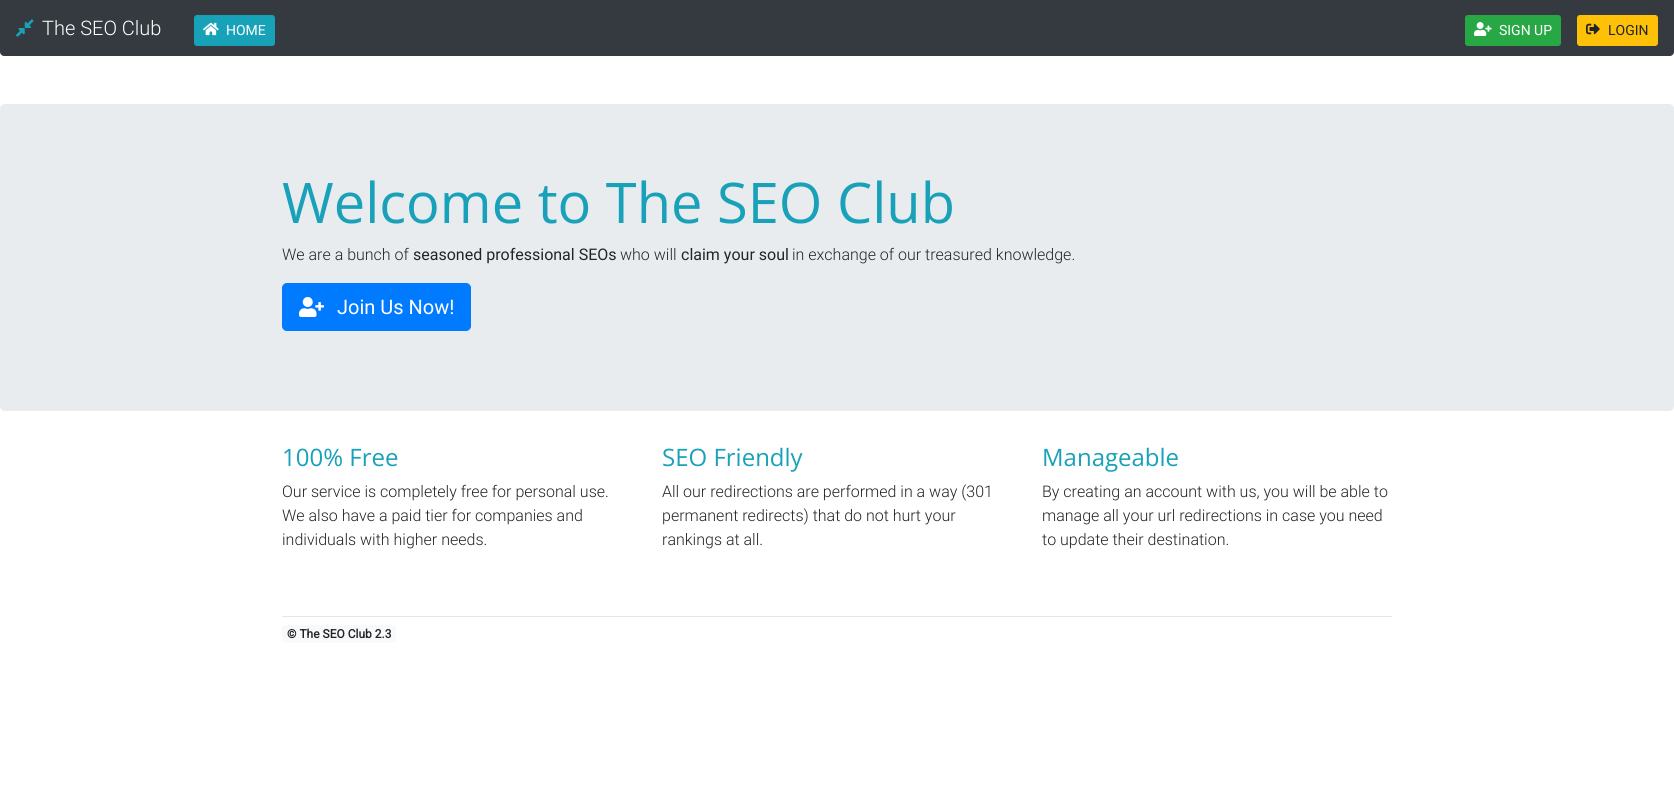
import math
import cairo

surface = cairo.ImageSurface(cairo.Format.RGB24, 1674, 796)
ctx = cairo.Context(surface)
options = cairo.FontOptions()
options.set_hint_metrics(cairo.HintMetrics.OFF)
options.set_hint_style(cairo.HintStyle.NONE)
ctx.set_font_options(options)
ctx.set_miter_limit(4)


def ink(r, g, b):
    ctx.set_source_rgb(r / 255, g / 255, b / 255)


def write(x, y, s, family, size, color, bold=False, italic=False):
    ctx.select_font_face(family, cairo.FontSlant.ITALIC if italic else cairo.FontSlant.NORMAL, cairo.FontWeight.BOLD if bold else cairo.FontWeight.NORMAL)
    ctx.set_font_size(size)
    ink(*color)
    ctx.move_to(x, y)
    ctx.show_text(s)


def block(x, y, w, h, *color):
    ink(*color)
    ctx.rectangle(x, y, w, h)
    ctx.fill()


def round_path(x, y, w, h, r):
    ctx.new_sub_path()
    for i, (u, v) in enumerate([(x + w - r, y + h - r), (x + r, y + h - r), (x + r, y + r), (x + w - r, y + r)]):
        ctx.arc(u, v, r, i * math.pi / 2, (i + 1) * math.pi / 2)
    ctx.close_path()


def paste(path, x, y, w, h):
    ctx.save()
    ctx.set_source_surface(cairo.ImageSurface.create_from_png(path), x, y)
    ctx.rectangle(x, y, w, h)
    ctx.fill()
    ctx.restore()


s1 = dict(family="Roboto Light", size=20, color=(255, 255, 255))
s2 = dict(family="Roboto", size=14, color=(255, 255, 255))
s3 = dict(family="Roboto", size=14, color=(33, 37, 41))
s4 = dict(family="Open Sans", size=56, color=(24, 161, 184))
s5 = dict(family="Roboto Light", size=16, color=(33, 37, 41))
s6 = dict(family="Roboto", size=16, color=(33, 37, 41))
s7 = dict(family="Roboto", size=20, color=(255, 255, 255))
s8 = dict(family="Open Sans", size=24, color=(24, 161, 184))
s9 = dict(family="Roboto", size=12, color=(33, 37, 41), bold=True)

ink(255, 255, 255)
ctx.paint()
ink(52, 58, 64)
ctx.new_path()
ctx.move_to(0, 0)
ctx.line_to(1674, 0)
ctx.line_to(1674, 52)
ctx.curve_to(1674, 54, 1672, 56, 1670, 56)
ctx.line_to(4, 56)
ctx.curve_to(2, 56, 0, 54, 0, 52)
ctx.close_path()
ctx.fill()
paste("pic1.png", 16, 19, 18, 18)
write(42, 35, "The SEO Club", **s1)
ink(23, 162, 184)
round_path(194.5, 15.5, 80, 30, 2.5)
ctx.fill_preserve()
ctx.set_line_width(1)
ctx.stroke()
paste("pic2.png", 203, 22, 16, 14)
write(226, 35, "HOME", **s2)
ink(40, 167, 69)
round_path(1465.5, 15.5, 95, 30, 2.5)
ctx.fill_preserve()
ctx.stroke()
paste("pic3.png", 1474, 22, 18, 14)
write(1499, 35, "SIGN UP", **s2)
ink(255, 193, 7)
round_path(1577.5, 15.5, 80, 30, 2.5)
ctx.fill_preserve()
ctx.stroke()
paste("pic4.png", 1586, 23, 14, 12)
write(1608, 35, "LOGIN", **s3)
ink(233, 236, 239)
round_path(0, 104, 1674, 307, 5)
ctx.fill()
write(282, 223, "Welcome to The SEO Club", **s4)
write(282, 260, "We are a bunch of", **s5)
write(413, 260, "seasoned professional SEOs", **s6)
write(620, 260, "who will", **s5)
write(681, 260, "claim your soul", **s6)
write(792, 260, "in exchange of our treasured knowledge.", **s5)
ink(0, 123, 255)
round_path(282.5, 283.5, 188, 47, 4.5)
ctx.fill_preserve()
ctx.stroke()
paste("pic5.png", 299, 297, 25, 20)
write(337, 314, "Join Us Now!", **s7)
write(282, 466, "100% Free", **s8)
write(282, 497, "Our service is completely free for personal use.", **s5)
write(282, 521, "We also have a paid tier for companies and", **s5)
write(282, 545, "individuals with higher needs.", **s5)
write(662, 466, "SEO Friendly", **s8)
write(662, 497, "All our redirections are performed in a way (301", **s5)
write(662, 521, "permanent redirects) that do not hurt your", **s5)
write(662, 545, "rankings at all.", **s5)
write(1042, 466, "Manageable", **s8)
write(1042, 497, "By creating an account with us, you will be able to", **s5)
write(1042, 521, "manage all your url redirections in case you need", **s5)
write(1042, 545, "to update their destination.", **s5)
block(282, 616, 1110, 1, 230, 230, 230)
ink(248, 249, 250)
round_path(282, 625, 114, 18, 4)
ctx.fill()
write(287, 638, "© The SEO Club 2.3", **s9)
surface.write_to_png("screenshot.png")
